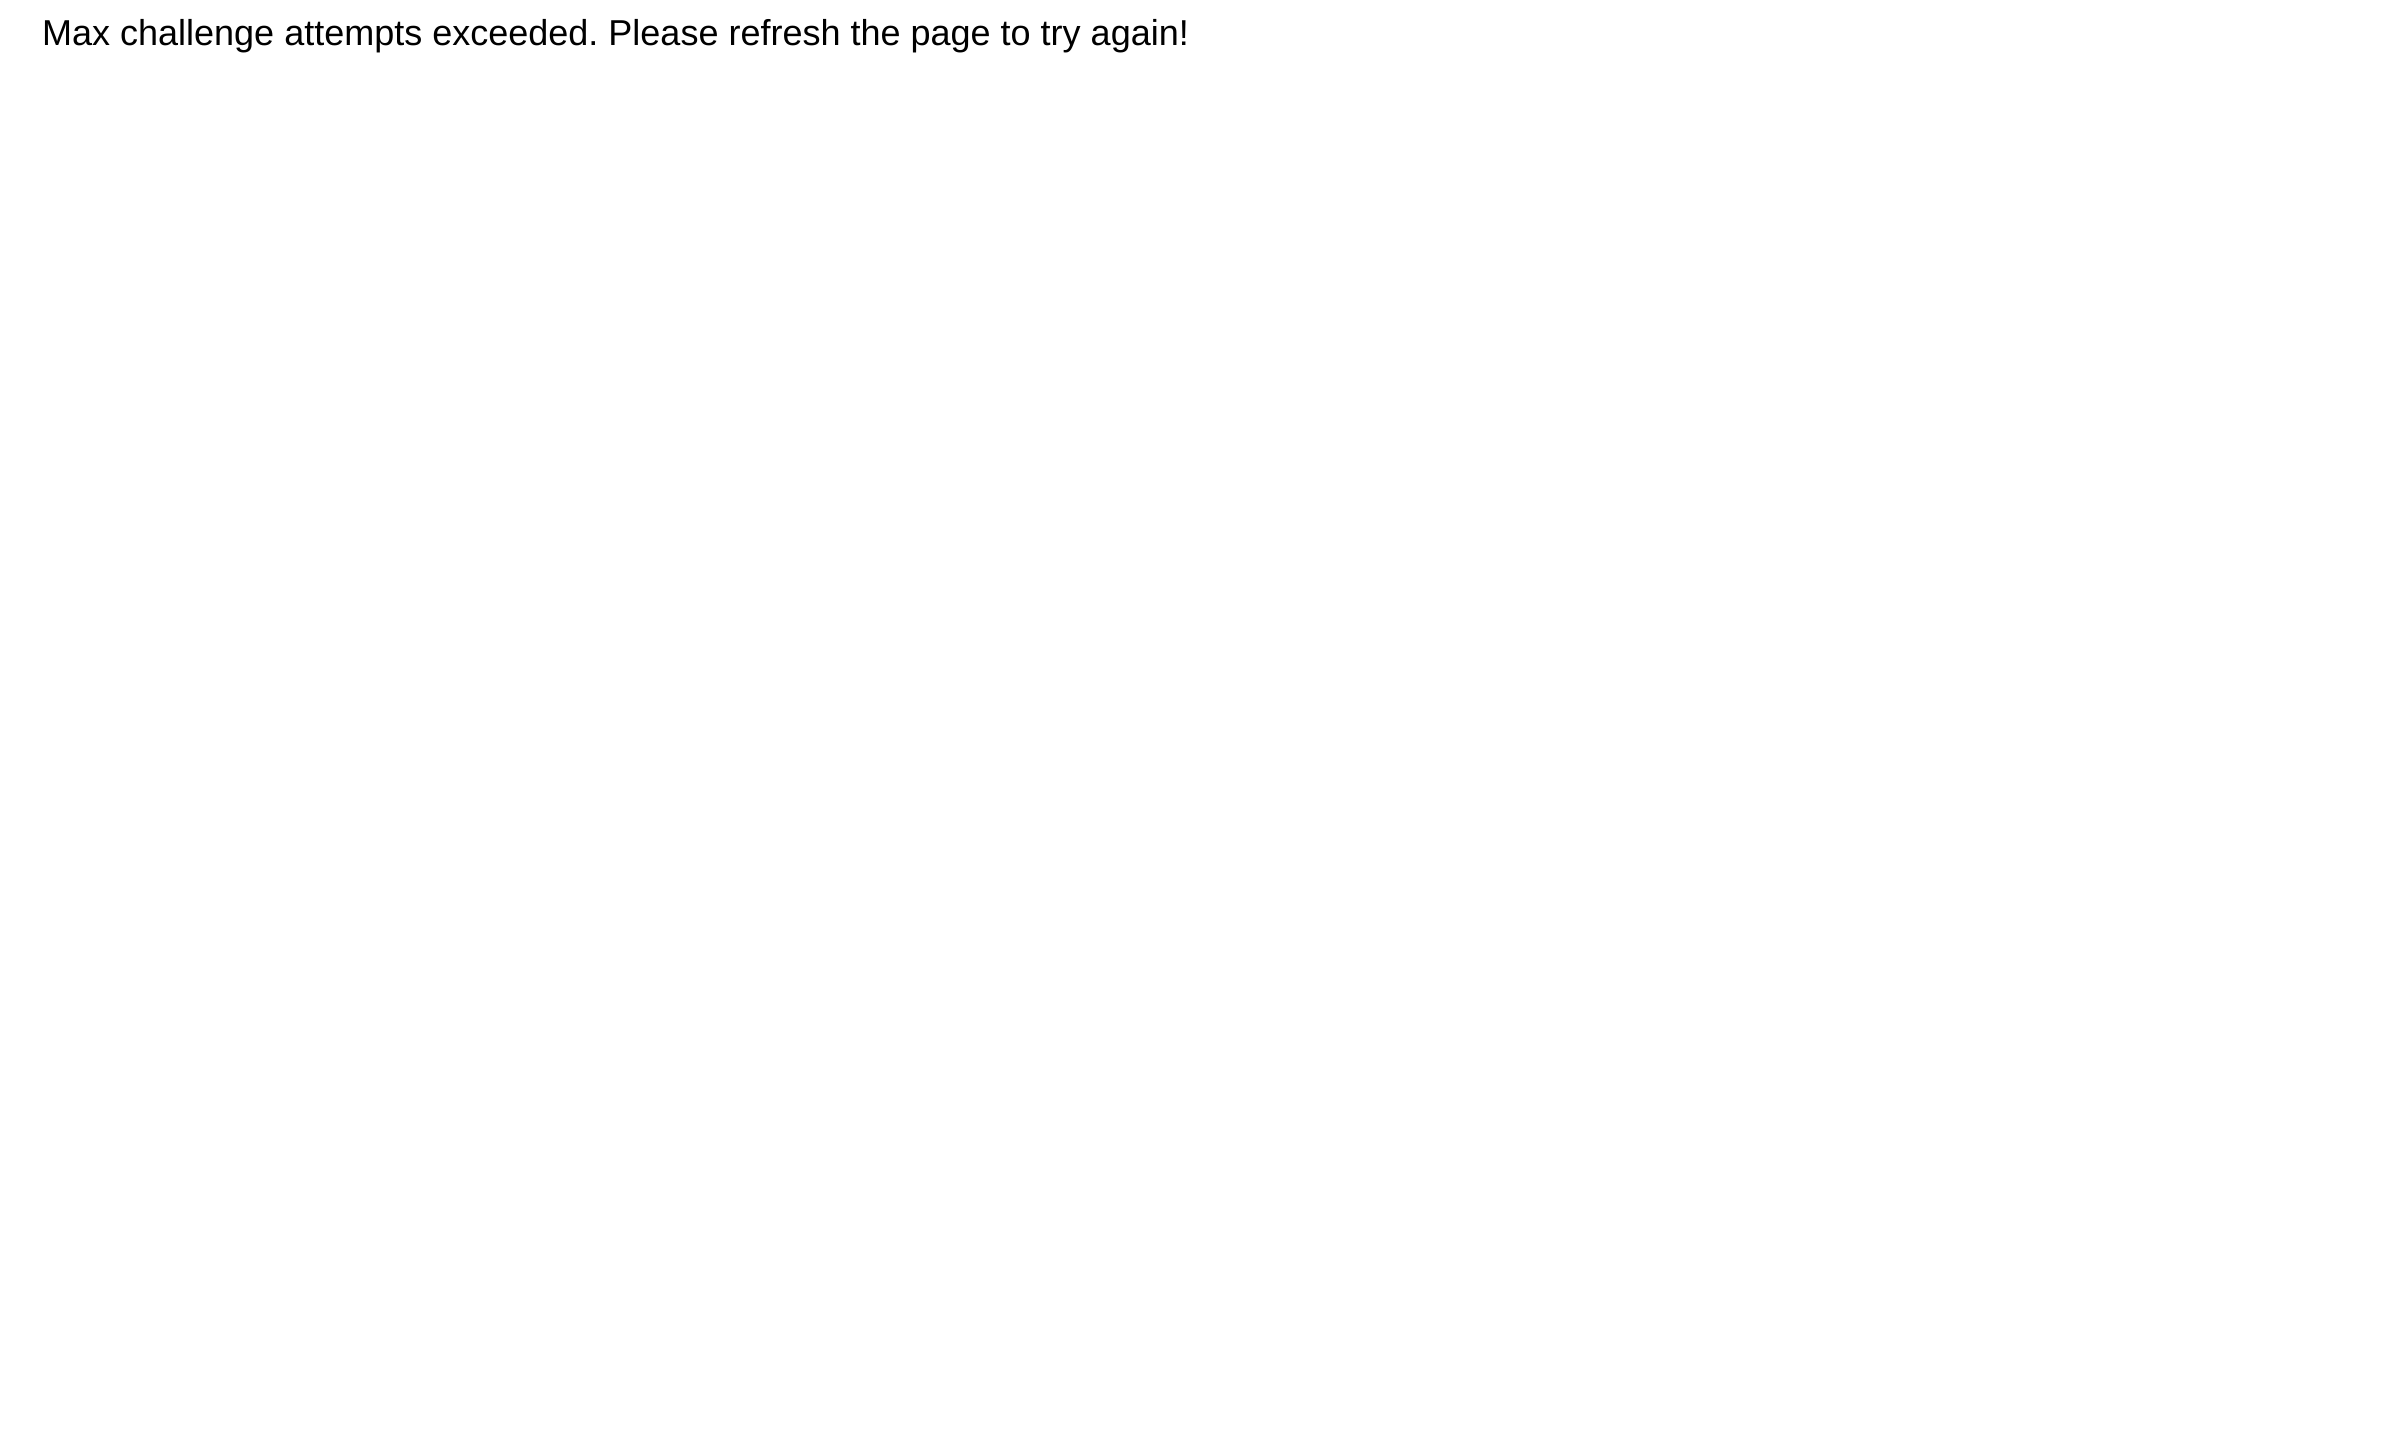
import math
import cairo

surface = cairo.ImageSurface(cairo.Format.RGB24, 2394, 1429)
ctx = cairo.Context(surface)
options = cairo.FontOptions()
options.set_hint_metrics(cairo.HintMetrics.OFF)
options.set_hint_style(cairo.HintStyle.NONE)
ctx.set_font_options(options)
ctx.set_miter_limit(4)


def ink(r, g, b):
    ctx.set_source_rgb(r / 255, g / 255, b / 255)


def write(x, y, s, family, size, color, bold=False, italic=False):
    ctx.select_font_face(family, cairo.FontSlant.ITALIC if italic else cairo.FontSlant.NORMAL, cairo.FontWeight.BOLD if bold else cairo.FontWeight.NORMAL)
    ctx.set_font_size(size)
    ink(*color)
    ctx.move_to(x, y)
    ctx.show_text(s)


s1 = dict(family="Liberation Sans", size=36, color=(0, 0, 0))

ink(255, 255, 255)
ctx.paint()
write(42, 45, "Max challenge attempts exceeded. Please refresh the page to try again!", **s1)
surface.write_to_png("screenshot.png")
